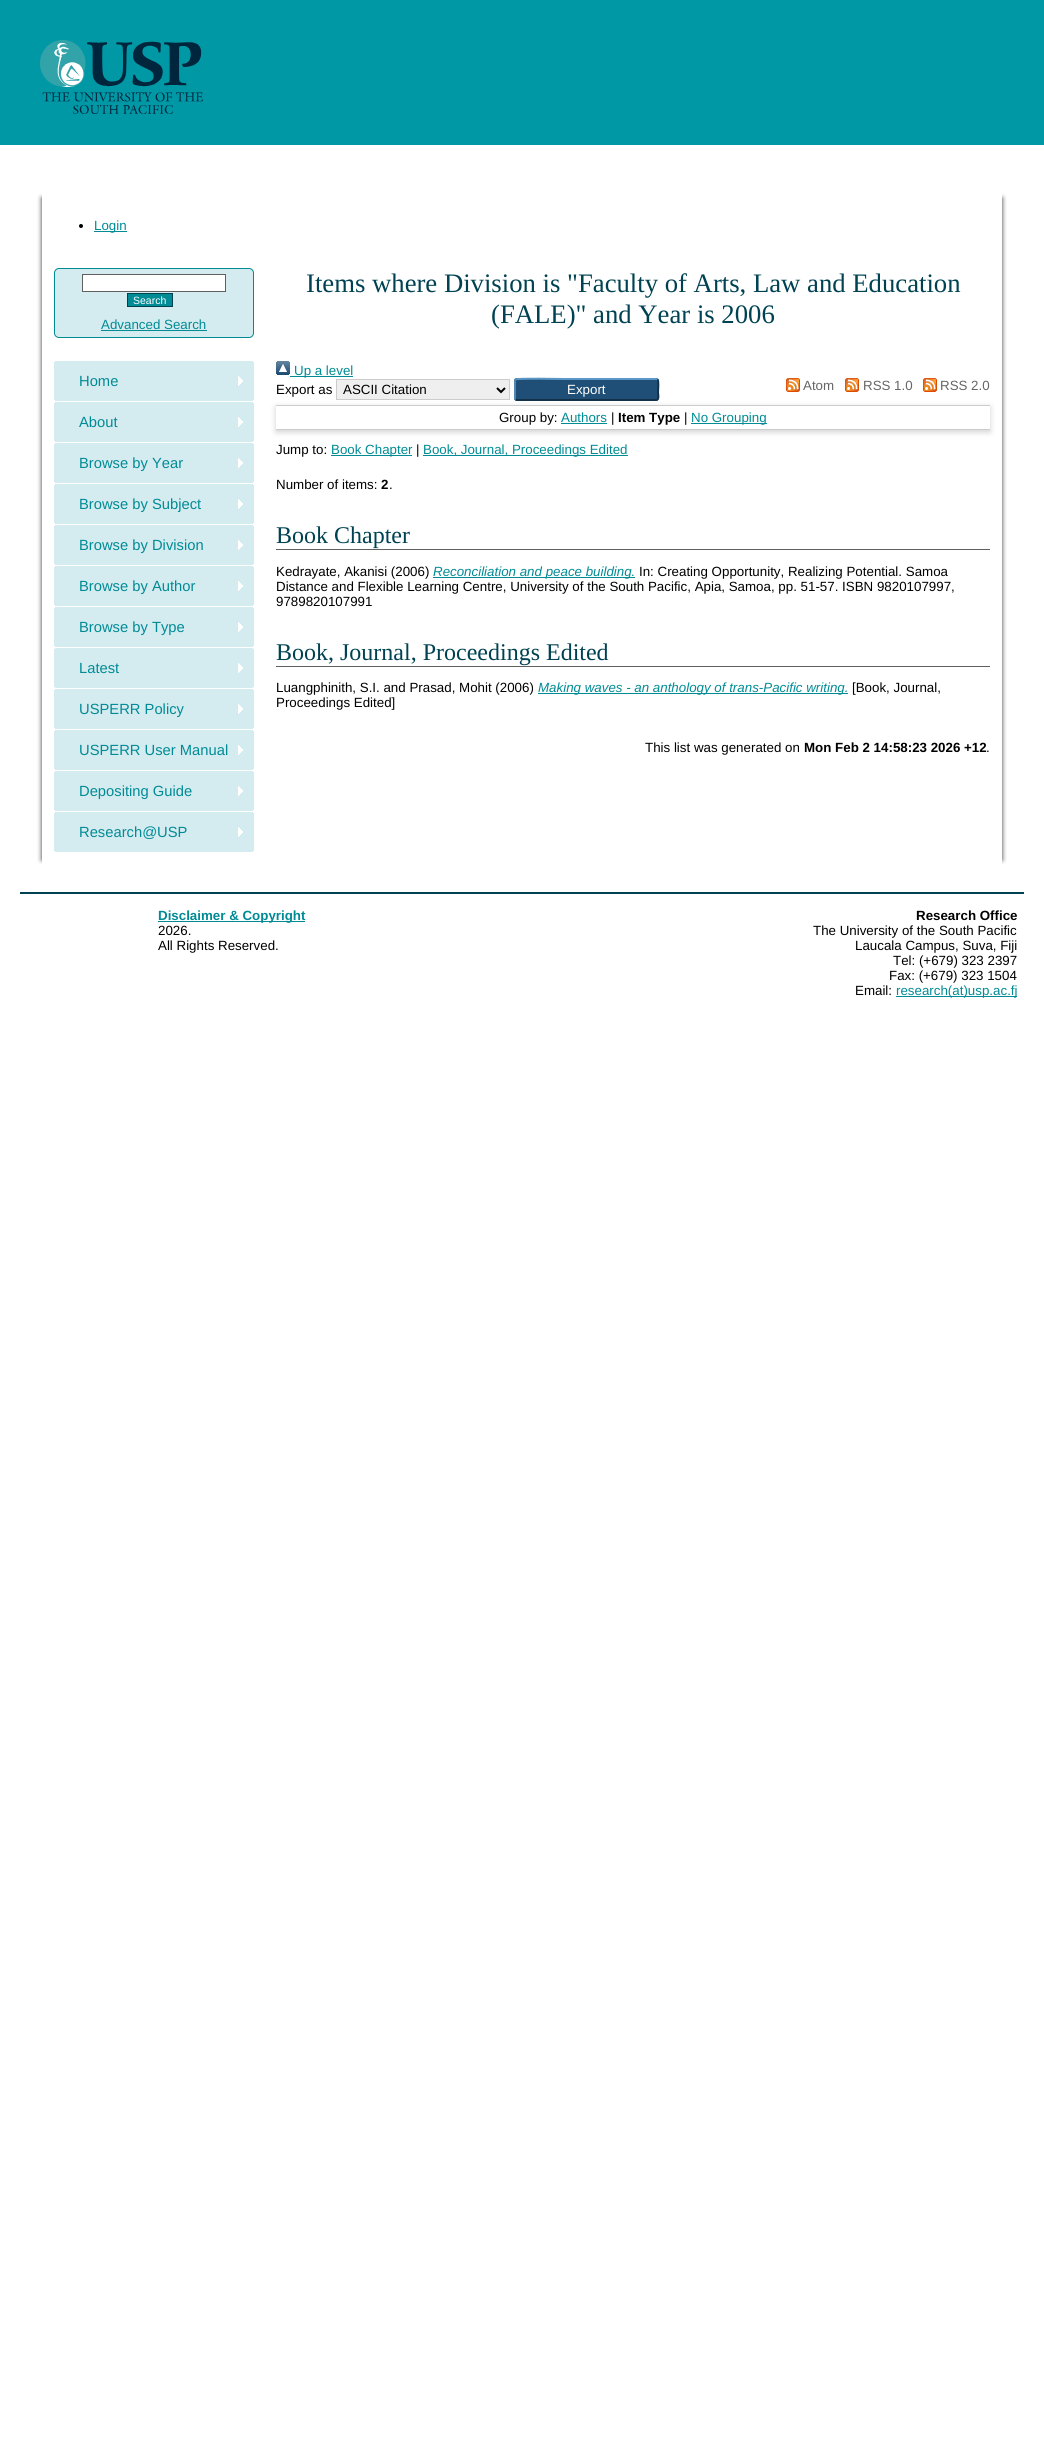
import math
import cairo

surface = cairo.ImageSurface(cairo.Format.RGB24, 1044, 2446)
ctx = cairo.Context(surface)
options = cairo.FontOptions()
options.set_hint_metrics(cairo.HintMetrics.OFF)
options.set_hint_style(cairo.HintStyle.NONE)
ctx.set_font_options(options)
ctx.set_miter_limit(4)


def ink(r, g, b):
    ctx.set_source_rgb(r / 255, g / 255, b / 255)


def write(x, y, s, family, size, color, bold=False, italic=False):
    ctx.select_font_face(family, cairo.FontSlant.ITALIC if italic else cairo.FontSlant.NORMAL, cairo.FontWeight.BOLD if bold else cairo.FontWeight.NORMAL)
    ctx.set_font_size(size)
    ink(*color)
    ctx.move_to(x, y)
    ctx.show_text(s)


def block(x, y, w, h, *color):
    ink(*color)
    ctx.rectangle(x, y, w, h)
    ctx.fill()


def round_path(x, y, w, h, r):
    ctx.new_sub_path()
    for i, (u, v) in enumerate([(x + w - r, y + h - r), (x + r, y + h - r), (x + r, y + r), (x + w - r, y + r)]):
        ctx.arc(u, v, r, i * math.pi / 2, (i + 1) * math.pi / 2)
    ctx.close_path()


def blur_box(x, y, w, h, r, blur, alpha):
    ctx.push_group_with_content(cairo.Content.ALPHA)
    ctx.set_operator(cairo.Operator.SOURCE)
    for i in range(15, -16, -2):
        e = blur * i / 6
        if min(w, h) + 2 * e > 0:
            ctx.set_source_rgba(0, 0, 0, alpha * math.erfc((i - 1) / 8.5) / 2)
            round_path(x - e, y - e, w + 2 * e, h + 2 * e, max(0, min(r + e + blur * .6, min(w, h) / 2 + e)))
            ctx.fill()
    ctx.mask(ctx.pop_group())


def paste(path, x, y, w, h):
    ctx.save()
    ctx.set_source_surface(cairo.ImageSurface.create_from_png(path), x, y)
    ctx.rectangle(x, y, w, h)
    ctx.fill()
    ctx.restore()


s1 = dict(family="Liberation Sans", size=13.33, color=(0, 139, 149))
s2 = dict(family="Liberation Sans", size=10.5, color=(255, 255, 255))
s3 = dict(family="Liberation Serif", size=26.7, color=(0, 66, 81))
s4 = dict(family="Liberation Sans", size=14.75, color=(0, 139, 149))
s5 = dict(family="Liberation Sans", size=13.33, color=(0, 0, 0))
s6 = dict(family="Liberation Sans", size=13.33, color=(255, 255, 255))
s7 = dict(family="Liberation Sans", size=13.33, color=(102, 102, 102))
s8 = dict(family="Liberation Sans", size=13.33, color=(0, 0, 0), bold=True)
s9 = dict(family="Liberation Serif", size=24, color=(0, 66, 81))
s10 = dict(family="Liberation Sans", size=13.33, color=(0, 139, 149), italic=True)
s11 = dict(family="Liberation Sans", size=13.33, color=(0, 139, 149), bold=True)

ink(255, 255, 255)
ctx.paint()
block(0, 0, 1044, 145, 0, 152, 165)
paste("pic1.png", 40, 40, 163, 74)
ctx.save()
ctx.rectangle(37, 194, 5, 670)
ctx.clip()
ink(51, 51, 51)
blur_box(42, 198, 950, 662, 0, 2.5, 1)
ctx.restore()
ctx.save()
ctx.rectangle(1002, 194, 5, 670)
ctx.clip()
ink(51, 51, 51)
blur_box(52, 198, 950, 662, 0, 2.5, 1)
ctx.restore()
ink(0, 0, 0)
ctx.arc(81, 226, 2, 0, 2 * math.pi)
ctx.fill()
block(94, 231, 33, 1, 0, 139, 149)
write(94, 230, "Login", **s1)
ink(212, 235, 239)
round_path(54.5, 268.5, 199, 69, 4.5)
ctx.fill_preserve()
ink(0, 139, 149)
ctx.set_line_width(1)
ctx.stroke()
ink(255, 255, 255)
ctx.rectangle(82.5, 274.5, 143, 17)
ctx.fill_preserve()
ink(96, 96, 96)
ctx.stroke()
ink(0, 139, 149)
ctx.rectangle(127.5, 293.5, 45, 13)
ctx.fill_preserve()
ink(0, 66, 81)
ctx.stroke()
write(133, 304, "Search", **s2)
write(101, 329, "Advanced Search", **s1)
block(101, 330, 106, 1, 0, 139, 149)
write(306, 292, "Items where Division is \"Faculty of Arts, Law and Education", **s3)
write(491, 323, "(FALE)\" and Year is 2006", **s3)
paste("pic2.png", 54, 361, 200, 40)
write(79, 386, "Home", **s4)
paste("pic2.png", 54, 402, 200, 40)
write(79, 427, "About", **s4)
paste("pic2.png", 54, 443, 200, 40)
write(79, 468, "Browse by Year", **s4)
paste("pic2.png", 54, 484, 200, 40)
write(79, 509, "Browse by Subject", **s4)
paste("pic2.png", 54, 525, 200, 40)
write(79, 550, "Browse by Division", **s4)
paste("pic2.png", 54, 566, 200, 40)
write(79, 591, "Browse by Author", **s4)
paste("pic2.png", 54, 607, 200, 40)
write(79, 632, "Browse by Type", **s4)
paste("pic2.png", 54, 648, 200, 40)
write(79, 673, "Latest", **s4)
paste("pic2.png", 54, 689, 200, 40)
write(79, 714, "USPERR Policy", **s4)
paste("pic2.png", 54, 730, 200, 40)
write(79, 755, "USPERR User Manual", **s4)
paste("pic2.png", 54, 771, 200, 40)
write(79, 796, "Depositing Guide", **s4)
paste("pic2.png", 54, 812, 200, 40)
write(79, 837, "Research@USP", **s4)
paste("pic3.png", 276, 361, 14, 14)
block(290, 376, 63, 1, 0, 139, 149)
write(294, 375, "Up a level", **s1)
write(276, 394, "Export as", **s5)
ctx.save()
ctx.set_fill_rule(cairo.FillRule.EVEN_ODD)
ctx.new_path()
ctx.move_to(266, 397)
ctx.line_to(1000, 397)
ctx.line_to(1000, 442)
ctx.line_to(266, 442)
ctx.close_path()
ctx.move_to(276, 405)
ctx.line_to(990, 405)
ctx.line_to(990, 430)
ctx.line_to(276, 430)
ctx.close_path()
ctx.clip()
ink(100, 100, 100)
blur_box(276, 407, 714, 25, 0, 3, 0.3)
ctx.restore()
ink(239, 239, 239)
ctx.rectangle(336.5, 379.5, 173, 20)
ctx.fill_preserve()
ink(204, 204, 204)
ctx.stroke()
ctx.new_path()
ctx.move_to(497, 388)
ctx.line_to(501, 392)
ctx.line_to(505, 388)
ink(0, 0, 0)
ctx.set_line_width(2)
ctx.stroke()
write(343, 394, "ASCII Citation", **s5)
ink(31, 79, 118)
round_path(514, 378, 145, 23, 3)
ctx.fill()
ctx.new_path()
ctx.move_to(515.5, 379.5)
ctx.curve_to(517, 378, 560.5, 379, 563.5, 379)
ctx.line_to(656, 379)
ctx.line_to(657.5, 379.5)
ink(91, 151, 199)
ctx.stroke()
ctx.new_path()
ctx.move_to(657.5, 379.5)
ctx.curve_to(659, 381, 658, 390, 658, 392.5)
ctx.curve_to(658, 394, 659.5, 399, 656.5, 400)
ctx.line_to(517, 400)
ctx.line_to(515.5, 399.5)
ink(19, 50, 74)
ctx.stroke()
ctx.new_path()
ctx.move_to(515.5, 399.5)
ctx.curve_to(515, 399, 515, 398.5, 515, 398)
ctx.line_to(515, 381)
ctx.curve_to(515, 380.5, 515, 380, 515.5, 379.5)
ink(82, 135, 179)
ctx.stroke()
write(567, 394, "Export", **s6)
paste("pic4.png", 786, 378, 14, 14)
write(803, 390, "Atom", **s7)
paste("pic4.png", 845, 378, 14, 14)
write(863, 390, "RSS 1.0", **s7)
paste("pic4.png", 923, 378, 14, 14)
write(940, 390, "RSS 2.0", **s7)
block(276, 405, 714, 1, 204, 204, 204)
block(276, 429, 714, 1, 204, 204, 204)
write(499, 422, "Group by:", **s5)
write(561, 422, "Authors", **s1)
block(561, 423, 46, 1, 0, 139, 149)
write(611, 422, "|", **s5)
write(618, 422, "Item Type", **s8)
write(684, 422, "|", **s5)
block(691, 423, 76, 1, 0, 139, 149)
write(691, 422, "No Grouping", **s1)
write(276, 454, "Jump to:", **s5)
block(331, 455, 81, 1, 0, 139, 149)
write(331, 454, "Book Chapter", **s1)
write(416, 454, "|", **s5)
block(423, 455, 205, 1, 0, 139, 149)
write(423, 454, "Book, Journal, Proceedings Edited", **s1)
write(276, 489, "Number of items:", **s5)
write(381, 489, "2", **s8)
write(389, 489, ".", **s5)
block(276, 549, 714, 1, 96, 96, 96)
write(276, 543, "Book Chapter", **s9)
write(276, 576, "Kedrayate, Akanisi (2006)", **s5)
block(433, 577, 202, 1, 0, 139, 149)
write(433, 576, "Reconciliation and peace building.", **s10)
write(639, 576, "In: Creating Opportunity, Realizing Potential. Samoa", **s5)
write(276, 591, "Distance and Flexible Learning Centre, University of the South Pacific, Apia, Samoa, pp. 51-57. ISBN 9820107997,", **s5)
write(276, 606, "9789820107991", **s5)
block(276, 666, 714, 1, 96, 96, 96)
write(276, 660, "Book, Journal, Proceedings Edited", **s9)
write(276, 692, "Luangphinith, S.I. and Prasad, Mohit (2006)", **s5)
block(538, 693, 310, 1, 0, 139, 149)
write(538, 692, "Making waves - an anthology of trans-Pacific writing.", **s10)
write(852, 692, "[Book, Journal,", **s5)
write(276, 707, "Proceedings Edited]", **s5)
write(645, 752, "This list was generated on", **s5)
write(804, 752, "Mon Feb 2 14:58:23 2026 +12", **s8)
write(986, 752, ".", **s5)
block(20, 892, 1004, 2, 0, 66, 81)
block(158, 921, 147, 1, 0, 139, 149)
write(158, 920, "Disclaimer & Copyright", **s11)
write(158, 935, "2026.", **s5)
write(158, 950, "All Rights Reserved.", **s5)
write(916, 920, "Research Office", **s8)
write(813, 935, "The University of the South Pacific", **s5)
write(855, 950, "Laucala Campus, Suva, Fiji", **s5)
write(893, 965, "Tel: (+679) 323 2397", **s5)
write(889, 980, "Fax: (+679) 323 1504", **s5)
write(855, 995, "Email:", **s5)
block(896, 996, 121, 1, 0, 139, 149)
write(896, 995, "research(at)usp.ac.fj", **s1)
surface.write_to_png("screenshot.png")
